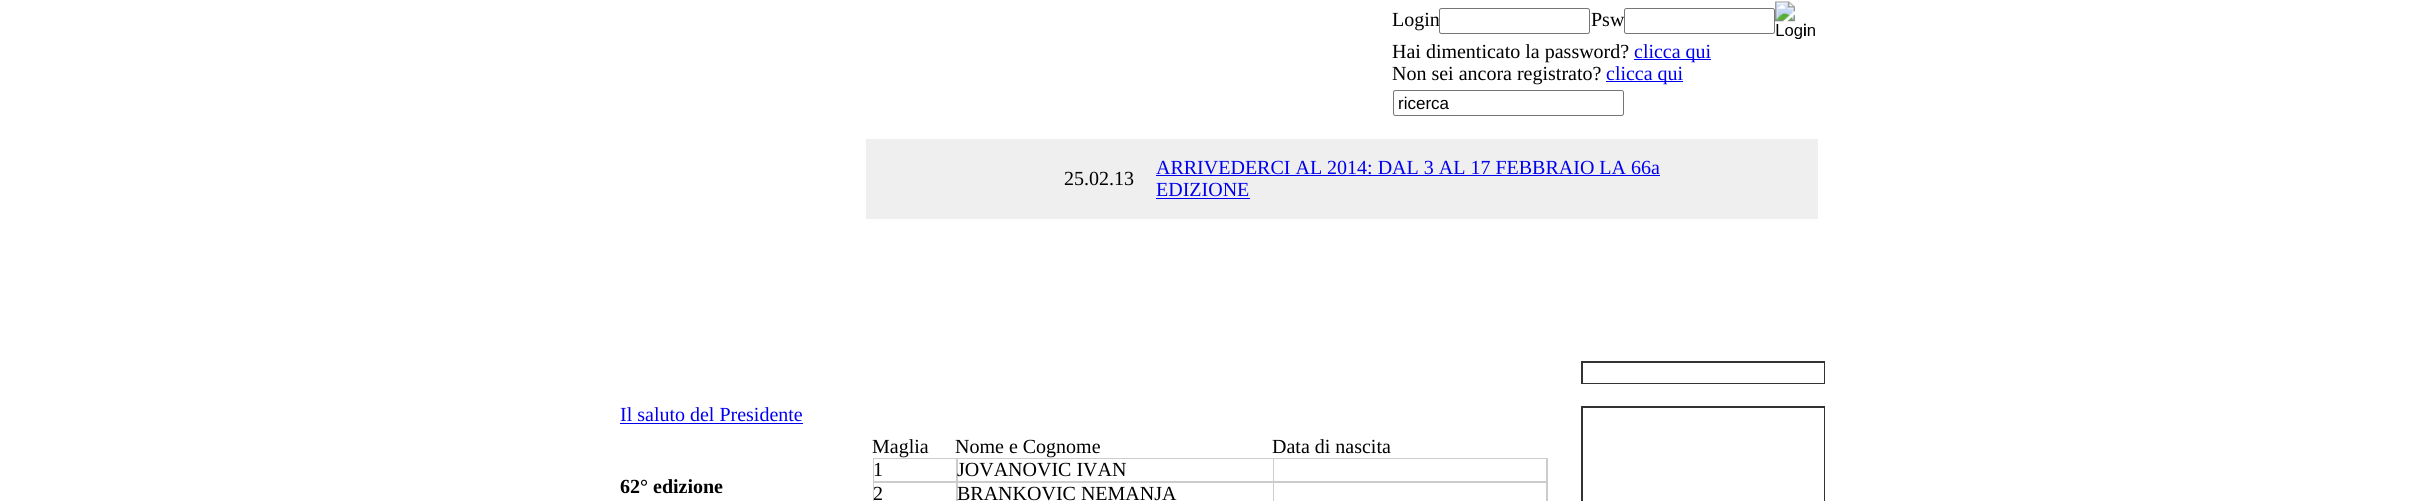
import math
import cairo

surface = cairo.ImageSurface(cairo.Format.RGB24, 2433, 501)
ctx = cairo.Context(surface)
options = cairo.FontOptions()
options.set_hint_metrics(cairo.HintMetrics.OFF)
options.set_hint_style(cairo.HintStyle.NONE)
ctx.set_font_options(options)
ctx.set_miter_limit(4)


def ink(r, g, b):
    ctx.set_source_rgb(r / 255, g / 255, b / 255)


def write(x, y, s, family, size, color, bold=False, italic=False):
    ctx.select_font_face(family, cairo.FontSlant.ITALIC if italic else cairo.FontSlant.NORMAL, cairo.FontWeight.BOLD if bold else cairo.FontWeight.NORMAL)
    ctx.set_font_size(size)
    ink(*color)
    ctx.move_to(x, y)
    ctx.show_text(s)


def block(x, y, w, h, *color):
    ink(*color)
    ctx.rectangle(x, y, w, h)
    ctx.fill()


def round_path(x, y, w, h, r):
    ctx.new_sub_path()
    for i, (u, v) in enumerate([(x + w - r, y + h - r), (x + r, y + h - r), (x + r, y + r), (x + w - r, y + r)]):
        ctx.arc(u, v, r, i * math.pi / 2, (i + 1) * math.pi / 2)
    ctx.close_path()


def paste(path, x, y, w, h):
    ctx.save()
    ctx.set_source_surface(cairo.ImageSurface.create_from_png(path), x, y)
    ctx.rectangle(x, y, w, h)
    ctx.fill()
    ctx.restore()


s1 = dict(family="Liberation Serif", size=20, color=(0, 0, 0))
s2 = dict(family="Liberation Sans", size=17, color=(0, 0, 0))
s3 = dict(family="Liberation Serif", size=20, color=(0, 0, 238))
s4 = dict(family="Liberation Serif", size=20, color=(0, 0, 0), bold=True)

ink(255, 255, 255)
ctx.paint()
write(1392, 26, "Login", **s1)
round_path(1439.5, 8.5, 150, 25, 2)
ink(118, 118, 118)
ctx.set_line_width(1)
ctx.stroke()
write(1591, 26, "Psw", **s1)
round_path(1624.5, 8.5, 150, 25, 2)
ink(118, 118, 118)
ctx.stroke()
paste("pic1.png", 1775, 1, 40, 38)
write(1803, 36, "i", **s2)
write(1392, 58, "Hai dimenticato la password?", **s1)
block(1634, 59, 77, 1, 0, 0, 238)
write(1634, 58, "clicca qui", **s3)
write(1392, 80, "Non sei ancora registrato?", **s1)
block(1606, 81, 77, 1, 0, 0, 238)
write(1606, 80, "clicca qui", **s3)
round_path(1393.5, 90.5, 230, 25, 2)
ink(118, 118, 118)
ctx.stroke()
write(1398, 109, "ricerca", **s2)
block(866, 139, 952, 80, 239, 239, 239)
write(1064, 185, "25.02.13", **s1)
write(1156, 174, "ARRIVEDERCI AL 2014: DAL 3 AL 17 FEBBRAIO LA 66a", **s3)
block(1156, 175, 504, 1, 0, 0, 238)
write(1156, 196, "EDIZIONE", **s3)
block(1156, 198, 94, 1, 0, 0, 238)
write(620, 421, "Il saluto del Presidente", **s3)
block(620, 423, 183, 1, 0, 0, 238)
write(620, 493, "62° edizione", **s4)
write(872, 453, "Maglia", **s1)
write(955, 453, "Nome e Cognome", **s1)
write(1272, 453, "Data di nascita", **s1)
block(873, 458, 675, 43, 204, 204, 204)
block(874, 459, 82, 22, 255, 255, 255)
write(873, 476, "1", **s1)
block(958, 459, 315, 22, 255, 255, 255)
write(957, 476, "JOVANOVIC IVAN", **s1)
block(1274, 459, 272, 22, 255, 255, 255)
block(874, 483, 82, 18, 255, 255, 255)
write(873, 500, "2", **s1)
block(958, 483, 315, 18, 255, 255, 255)
write(957, 500, "BRANKOVIC NEMANJA", **s1)
block(1274, 483, 272, 18, 255, 255, 255)
block(1581, 361, 244, 23, 51, 51, 51)
block(1583, 363, 241, 20, 255, 255, 255)
block(1581, 406, 244, 95, 51, 51, 51)
block(1583, 408, 241, 93, 255, 255, 255)
surface.write_to_png("screenshot.png")
